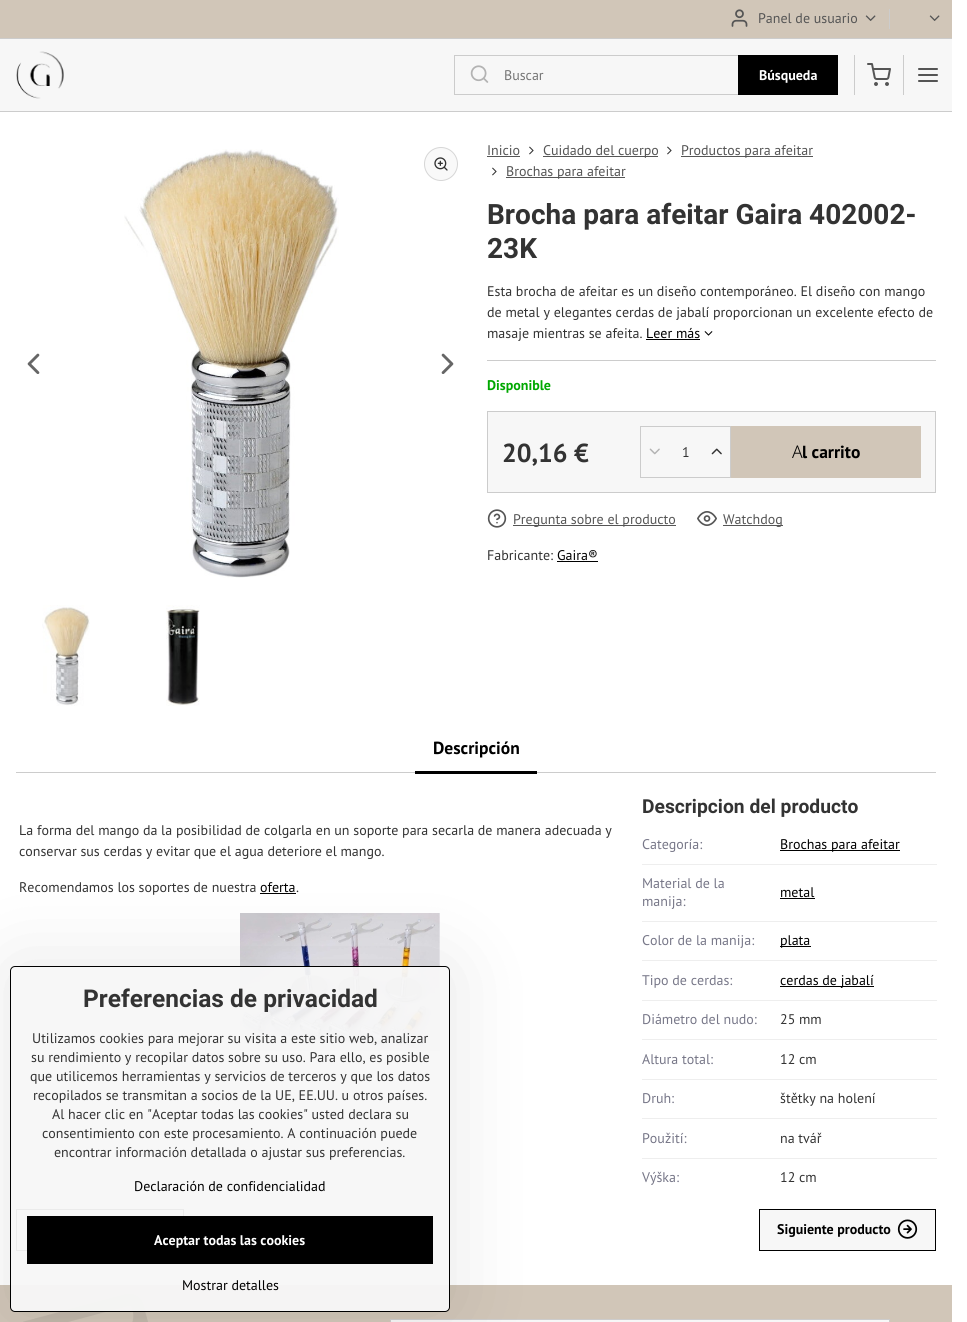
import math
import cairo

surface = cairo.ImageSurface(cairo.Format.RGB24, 967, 1322)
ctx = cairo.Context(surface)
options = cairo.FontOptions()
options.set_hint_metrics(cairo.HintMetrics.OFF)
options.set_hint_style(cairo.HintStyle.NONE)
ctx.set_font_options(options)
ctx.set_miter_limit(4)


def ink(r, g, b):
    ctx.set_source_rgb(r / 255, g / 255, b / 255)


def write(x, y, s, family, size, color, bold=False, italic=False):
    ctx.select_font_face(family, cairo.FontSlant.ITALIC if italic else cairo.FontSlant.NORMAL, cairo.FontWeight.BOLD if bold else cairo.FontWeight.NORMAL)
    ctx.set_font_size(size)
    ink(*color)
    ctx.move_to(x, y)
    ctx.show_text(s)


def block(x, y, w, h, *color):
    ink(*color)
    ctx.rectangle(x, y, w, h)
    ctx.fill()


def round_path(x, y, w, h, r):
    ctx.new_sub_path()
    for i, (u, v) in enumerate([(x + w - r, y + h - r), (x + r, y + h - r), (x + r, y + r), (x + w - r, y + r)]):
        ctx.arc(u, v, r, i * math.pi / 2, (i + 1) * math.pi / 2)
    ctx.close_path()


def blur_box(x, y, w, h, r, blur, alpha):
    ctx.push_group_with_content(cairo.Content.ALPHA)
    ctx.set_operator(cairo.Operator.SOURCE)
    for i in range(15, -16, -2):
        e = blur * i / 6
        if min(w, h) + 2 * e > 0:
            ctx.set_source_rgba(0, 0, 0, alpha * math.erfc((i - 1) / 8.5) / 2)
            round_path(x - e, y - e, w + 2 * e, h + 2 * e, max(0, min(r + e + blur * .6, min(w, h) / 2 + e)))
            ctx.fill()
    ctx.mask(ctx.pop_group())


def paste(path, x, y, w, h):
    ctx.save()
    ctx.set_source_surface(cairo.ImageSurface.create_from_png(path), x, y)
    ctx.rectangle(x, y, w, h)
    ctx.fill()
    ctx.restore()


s1 = dict(family="PT Sans", size=14, color=(85, 85, 85))
s2 = dict(family="PT Sans", size=14, color=(117, 117, 117))
s3 = dict(family="PT Sans", size=14, color=(255, 255, 255), bold=True)
s4 = dict(family="Roboto", size=28, color=(51, 51, 51), bold=True)
s5 = dict(family="PT Sans", size=14, color=(51, 51, 51))
s6 = dict(family="PT Sans", size=14, color=(0, 0, 0))
s7 = dict(family="PT Sans", size=14, color=(0, 168, 0), bold=True)
s8 = dict(family="PT Sans", size=26, color=(51, 51, 51), bold=True)
s9 = dict(family="Noto Sans Light", size=17.5, color=(0, 0, 0))
s10 = dict(family="PT Sans", size=17.5, color=(0, 0, 0), bold=True)
s11 = dict(family="Roboto", size=19.25, color=(51, 51, 51), bold=True)
s12 = dict(family="PT Sans", size=14, color=(119, 119, 136))
s13 = dict(family="PT Sans", size=14, color=(0, 0, 0), bold=True)
s14 = dict(family="Roboto", size=24.5, color=(51, 51, 51), bold=True)

ink(255, 255, 255)
ctx.paint()
block(0, 0, 952, 38, 209, 198, 184)
block(0, 38, 952, 1, 204, 204, 204)
block(889, 9, 1, 20, 204, 204, 204)
paste("pic1.png", 731, 9, 17, 18)
write(758, 23, "Panel de usuario", **s1)
paste("pic2.png", 865, 15, 11, 6)
paste("pic2.png", 929, 15, 11, 6)
block(0, 39, 952, 72, 247, 247, 247)
block(0, 111, 952, 1, 204, 204, 204)
paste("pic3.png", 16, 51, 48, 48)
ctx.rectangle(454.5, 55.5, 383, 39)
ctx.set_line_width(1)
ctx.stroke()
paste("pic4.png", 470, 65, 19, 18)
write(504, 80, "Buscar", **s2)
block(738, 55, 100, 40, 0, 0, 0)
write(759, 80, "Búsqueda", **s3)
block(854, 55, 1, 40, 204, 204, 204)
paste("pic5.png", 867, 63, 24, 23)
block(903, 55, 1, 40, 204, 204, 204)
paste("pic6.png", 918, 68, 20, 14)
paste("pic7.png", 27, 353, 13, 21)
paste("pic8.png", 124, 149, 215, 429)
ink(249, 249, 249)
ctx.arc(441, 164, 16.5, 0, 2 * math.pi)
ctx.fill_preserve()
ink(214, 214, 214)
ctx.stroke()
paste("pic9.png", 434, 157, 14, 14)
paste("pic10.png", 441, 353, 13, 21)
paste("pic11.png", 42, 605, 48, 101)
paste("pic12.png", 166, 605, 34, 101)
write(487, 155, "Inicio", **s1)
block(487, 156, 33, 1, 85, 85, 85)
paste("pic13.png", 529, 146, 5, 9)
block(543, 156, 115, 1, 85, 85, 85)
write(543, 155, "Cuidado del cuerpo", **s1)
paste("pic13.png", 667, 146, 5, 9)
block(681, 156, 132, 1, 85, 85, 85)
write(681, 155, "Productos para afeitar", **s1)
paste("pic13.png", 492, 167, 5, 9)
block(506, 177, 119, 1, 85, 85, 85)
write(506, 176, "Brochas para afeitar", **s1)
write(487, 224, "Brocha para afeitar Gaira 402002-", **s4)
write(487, 258, "23K", **s4)
write(487, 296, "Esta brocha de afeitar es un diseño contemporáneo. El diseño con mango", **s5)
write(487, 317, "de metal y elegantes cerdas de jabalí proporcionan un excelente efecto de", **s5)
write(487, 338, "masaje mientras se afeita.", **s5)
write(646, 338, "Leer más", **s6)
block(646, 339, 54, 1, 0, 0, 0)
paste("pic14.png", 704, 331, 9, 5)
block(487, 360, 449, 1, 204, 204, 204)
write(487, 390, "Disponible", **s7)
ink(247, 247, 247)
ctx.rectangle(487.5, 411.5, 448, 81)
ctx.fill_preserve()
ink(204, 204, 204)
ctx.stroke()
write(502, 462, "20,16 €", **s8)
ctx.rectangle(640.5, 426.5, 90, 51)
ink(204, 204, 204)
ctx.stroke()
paste("pic15.png", 649, 448, 11, 7)
write(682, 457, "1", **s5)
paste("pic16.png", 711, 448, 11, 7)
block(731, 426, 190, 52, 209, 198, 184)
write(792, 458, "A", **s9)
write(802, 458, "l carrito", **s10)
paste("pic17.png", 487, 509, 20, 19)
block(513, 525, 163, 1, 85, 85, 85)
write(513, 524, "Pregunta sobre el producto", **s1)
paste("pic18.png", 697, 511, 20, 15)
block(723, 525, 60, 1, 85, 85, 85)
write(723, 524, "Watchdog", **s1)
write(487, 560, "Fabricante:", **s5)
write(557, 560, "Gaira®", **s6)
block(557, 561, 41, 1, 0, 0, 0)
block(16, 772, 920, 1, 204, 204, 204)
block(415, 771, 122, 3, 0, 0, 0)
write(433, 754, "Descripción", **s10)
write(19, 835, "La forma del mango da la posibilidad de colgarla en un soporte para secarla de manera adecuada y", **s5)
write(19, 856, "conservar sus cerdas y evitar que el agua deteriore el mango.", **s5)
write(19, 892, "Recomendamos los soportes de nuestra", **s5)
write(260, 892, "oferta", **s6)
block(260, 893, 36, 1, 0, 0, 0)
write(296, 892, ".", **s5)
paste("pic19.png", 240, 913, 200, 138)
write(642, 813, "Descripcion del producto", **s11)
block(642, 864, 295, 1, 238, 238, 238)
write(642, 849, "Categoría:", **s12)
block(780, 850, 120, 1, 0, 0, 0)
write(780, 849, "Brochas para afeitar", **s6)
block(642, 921, 295, 1, 238, 238, 238)
write(642, 888, "Material de la", **s12)
write(642, 906, "manija:", **s12)
write(780, 897, "metal", **s6)
block(780, 898, 35, 1, 0, 0, 0)
block(642, 960, 295, 1, 238, 238, 238)
write(642, 945, "Color de la manija:", **s12)
block(780, 946, 31, 1, 0, 0, 0)
write(780, 945, "plata", **s6)
block(642, 1000, 295, 1, 238, 238, 238)
write(642, 985, "Tipo de cerdas:", **s12)
block(780, 986, 94, 1, 0, 0, 0)
write(780, 985, "cerdas de jabalí", **s6)
block(642, 1039, 295, 1, 238, 238, 238)
write(642, 1024, "Diámetro del nudo:", **s12)
write(780, 1024, "25 mm", **s5)
block(642, 1079, 295, 1, 238, 238, 238)
write(642, 1064, "Altura total:", **s12)
write(780, 1064, "12 cm", **s5)
block(642, 1118, 295, 1, 238, 238, 238)
write(642, 1103, "Druh:", **s12)
write(780, 1103, "štětky na holení", **s5)
block(642, 1158, 295, 1, 238, 238, 238)
write(642, 1143, "Použití:", **s12)
write(780, 1143, "na tvář", **s5)
write(642, 1182, "Výška:", **s12)
write(780, 1182, "12 cm", **s5)
ink(247, 247, 247)
ctx.rectangle(16.5, 1209.5, 167, 41)
ctx.fill_preserve()
ink(0, 0, 0)
ctx.stroke()
ink(247, 247, 247)
ctx.rectangle(759.5, 1209.5, 176, 41)
ctx.fill_preserve()
ink(0, 0, 0)
ctx.stroke()
write(777, 1234, "Siguiente producto", **s13)
paste("pic20.png", 897, 1219, 21, 20)
block(0, 1285, 952, 37, 209, 198, 184)
paste("pic21.png", 23, 1294, 125, 28)
ink(247, 247, 247)
ctx.rectangle(390.5, 1319.5, 499, 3)
ctx.fill_preserve()
ink(204, 204, 204)
ctx.stroke()
ctx.save()
ctx.set_fill_rule(cairo.FillRule.EVEN_ODD)
ctx.new_path()
ctx.move_to(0, 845)
ctx.line_to(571, 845)
ctx.line_to(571, 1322)
ctx.line_to(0, 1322)
ctx.close_path()
ctx.move_to(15, 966)
ctx.line_to(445, 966)
ctx.curve_to(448, 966, 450, 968, 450, 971)
ctx.line_to(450, 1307)
ctx.curve_to(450, 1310, 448, 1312, 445, 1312)
ctx.line_to(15, 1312)
ctx.curve_to(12, 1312, 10, 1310, 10, 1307)
ctx.line_to(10, 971)
ctx.curve_to(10, 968, 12, 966, 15, 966)
ctx.close_path()
ctx.clip()
ink(0, 0, 0)
blur_box(10, 966, 440, 346, 5, 40, 0.1)
ctx.restore()
ctx.set_source_rgba(0.969, 0.969, 0.969, 0.95)
round_path(10.5, 966.5, 439, 345, 4.5)
ctx.fill_preserve()
ink(0, 0, 0)
ctx.stroke()
write(83, 1007, "Preferencias de privacidad", **s14)
write(32, 1043, "Utilizamos cookies para mejorar su visita a este sitio web, analizar", **s5)
write(31, 1062, "su rendimiento y recopilar datos sobre su uso. Para ello, es posible", **s5)
write(30, 1081, "que utilicemos herramientas y servicios de terceros y que los datos", **s5)
write(33, 1100, "recopilados se transmitan a socios de la UE, EE.UU. u otros países.", **s5)
write(52, 1119, "Al hacer clic en \"Aceptar todas las cookies\" usted declara su", **s5)
write(42, 1138, "consentimiento con este procesamiento. A continuación puede", **s5)
write(54, 1157, "encontrar información detallada o ajustar sus preferencias.", **s5)
write(134, 1191, "Declaración de confidencialidad", **s6)
block(27, 1216, 406, 48, 0, 0, 0)
write(154, 1245, "Aceptar todas las cookies", **s3)
write(182, 1290, "Mostrar detalles", **s6)
surface.write_to_png("screenshot.png")
